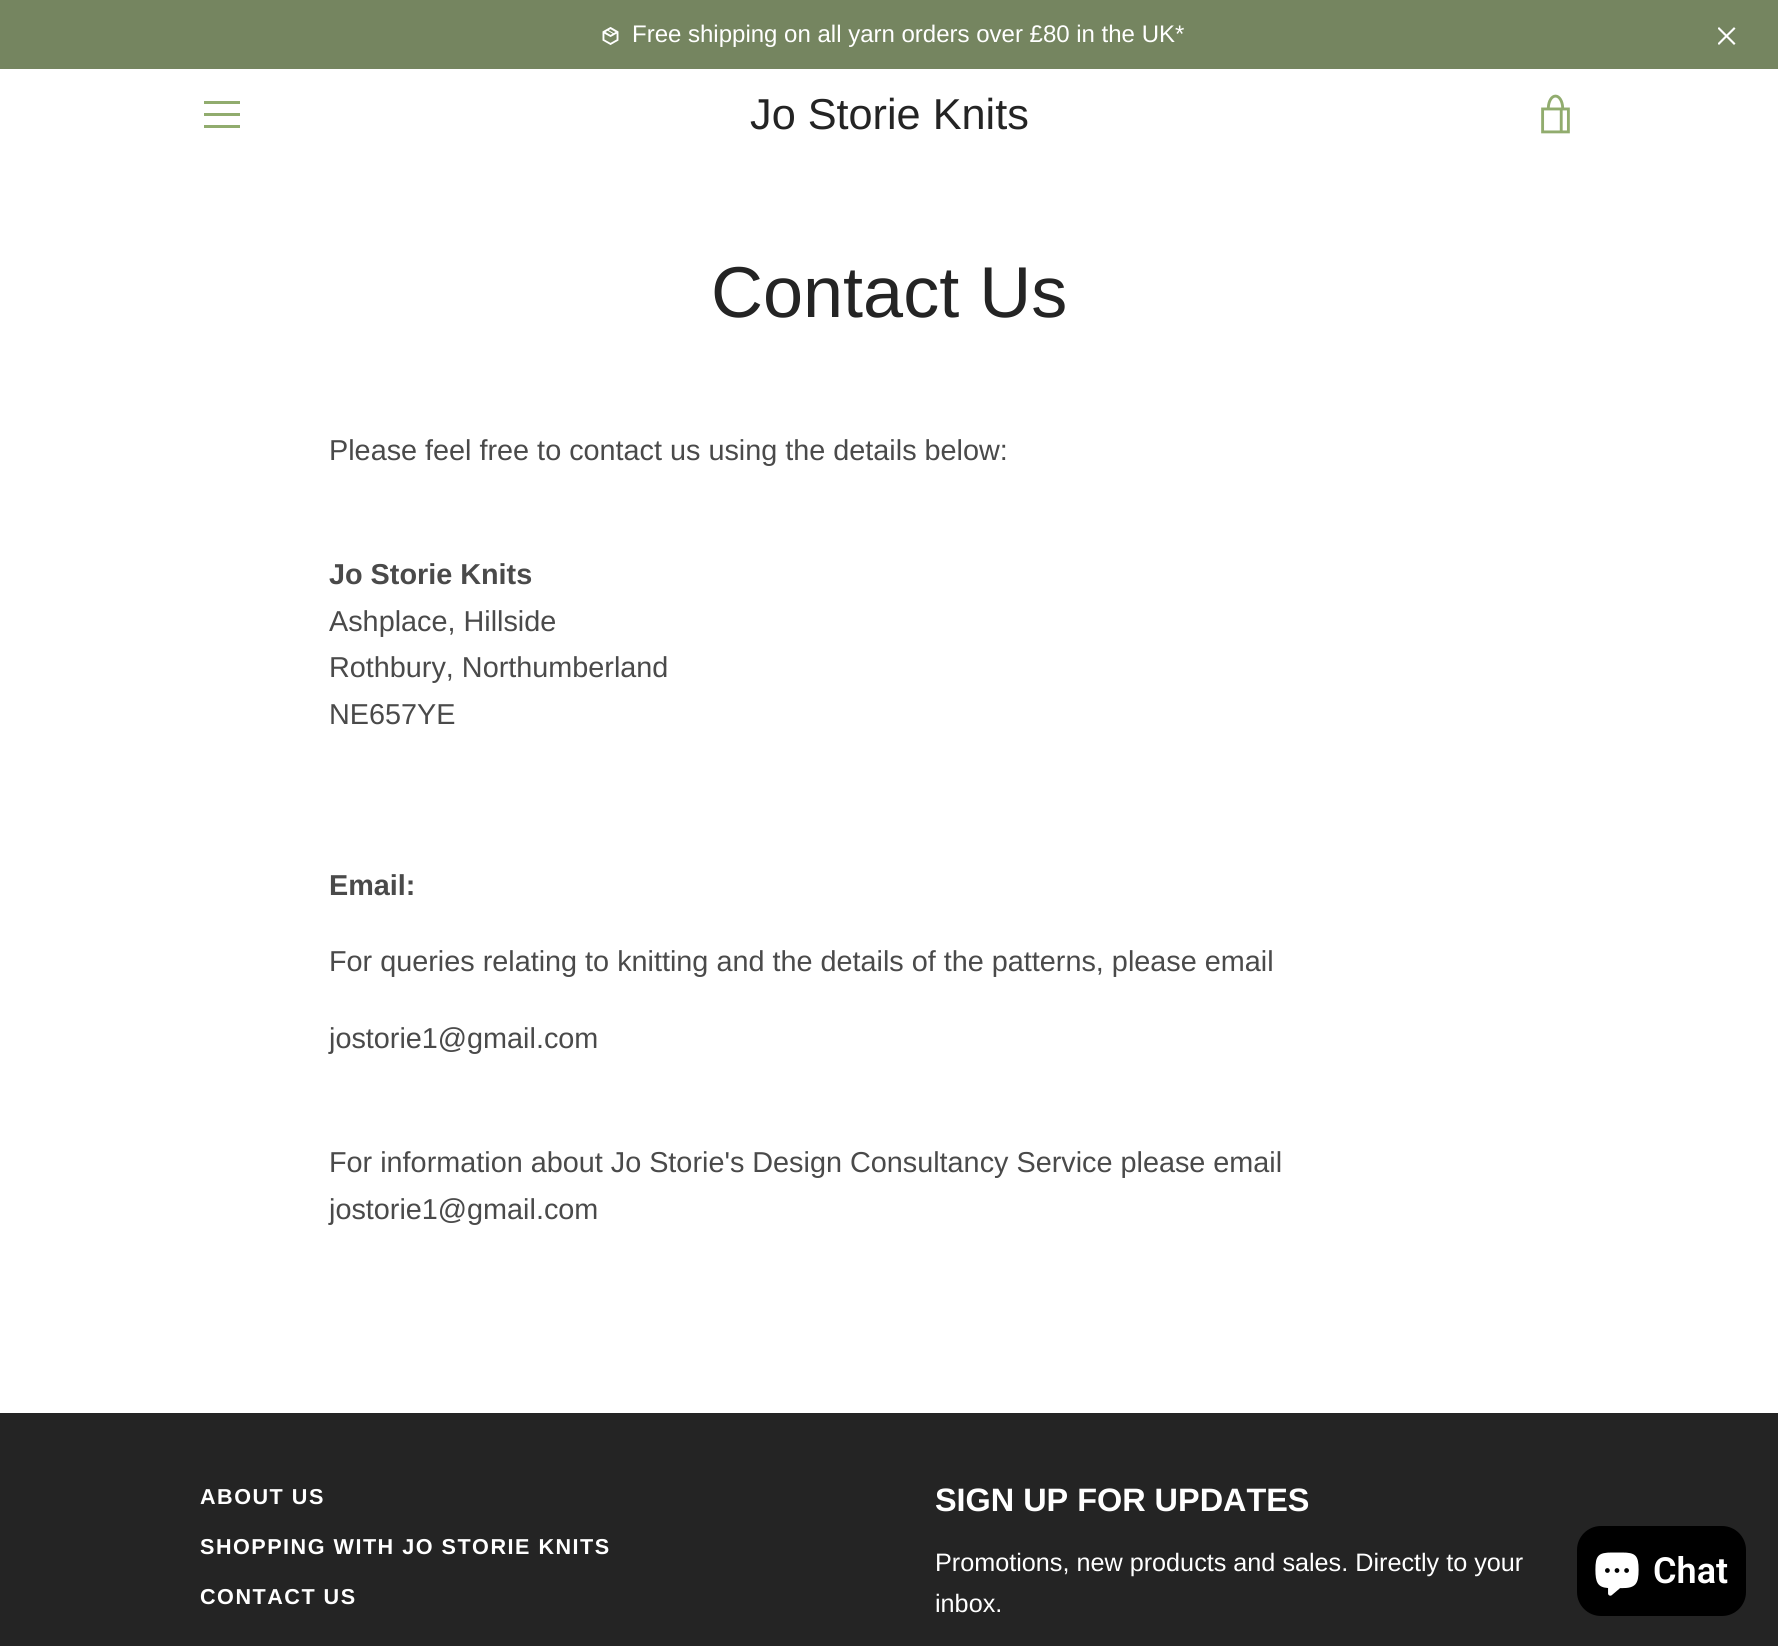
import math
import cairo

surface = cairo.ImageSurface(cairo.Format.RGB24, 1778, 1646)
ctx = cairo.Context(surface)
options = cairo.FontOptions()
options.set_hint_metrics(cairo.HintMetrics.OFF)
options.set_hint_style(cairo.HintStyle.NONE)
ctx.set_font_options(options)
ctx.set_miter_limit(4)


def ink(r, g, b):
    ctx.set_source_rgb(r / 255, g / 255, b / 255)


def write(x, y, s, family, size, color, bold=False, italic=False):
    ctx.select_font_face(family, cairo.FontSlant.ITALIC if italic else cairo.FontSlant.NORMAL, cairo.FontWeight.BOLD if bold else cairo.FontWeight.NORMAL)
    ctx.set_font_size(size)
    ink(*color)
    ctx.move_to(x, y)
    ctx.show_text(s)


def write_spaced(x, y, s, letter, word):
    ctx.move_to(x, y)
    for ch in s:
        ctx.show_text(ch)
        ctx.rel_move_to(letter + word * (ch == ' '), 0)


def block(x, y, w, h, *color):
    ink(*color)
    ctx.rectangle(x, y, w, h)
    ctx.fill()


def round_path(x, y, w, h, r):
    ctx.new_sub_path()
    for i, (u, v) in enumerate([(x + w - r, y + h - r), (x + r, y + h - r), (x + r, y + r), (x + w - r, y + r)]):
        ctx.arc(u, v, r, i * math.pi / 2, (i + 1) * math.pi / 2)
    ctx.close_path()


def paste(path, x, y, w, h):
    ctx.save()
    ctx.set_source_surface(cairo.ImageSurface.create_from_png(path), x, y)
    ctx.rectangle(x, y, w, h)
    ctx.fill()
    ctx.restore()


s1 = dict(family="Arimo", size=24, color=(255, 255, 255))
s2 = dict(family="Arimo", size=43.25, color=(36, 36, 36))
s3 = dict(family="Arimo", size=72, color=(36, 36, 36))
s4 = dict(family="Arimo", size=28.8, color=(74, 74, 74))
s5 = dict(family="Arimo", size=28.8, color=(74, 74, 74), bold=True)
s6 = dict(family="Arimo", size=32.4, color=(255, 255, 255), bold=True)
s7 = dict(family="Arimo", size=25.2, color=(255, 255, 255))
s8 = dict(family="Roboto SemiBold", size=36, color=(255, 255, 255))

ink(255, 255, 255)
ctx.paint()
block(0, 0, 1778, 69, 117, 133, 96)
paste("pic1.png", 602, 27, 17, 18)
write(632, 42, "Free shipping on all yarn orders over £80 in the UK*", **s1)
paste("pic2.png", 1718, 27, 18, 18)
block(204, 101, 36, 3, 145, 172, 110)
block(204, 113, 36, 3, 145, 172, 110)
block(204, 125, 36, 3, 145, 172, 110)
write(750, 129, "Jo Storie Knits", **s2)
paste("pic3.png", 1541, 94, 29, 40)
write(711, 317, "Contact Us", **s3)
write(329, 460, "Please feel free to contact us using the details below:", **s4)
write(329, 584, "Jo Storie Knits", **s5)
write(329, 631, "Ashplace, Hillside", **s4)
write(329, 677, "Rothbury, Northumberland", **s4)
write(329, 724, "NE657YE", **s4)
write(329, 895, "Email:", **s5)
write(329, 971, "For queries relating to knitting and the details of the patterns, please email", **s4)
write(329, 1048, "jostorie1@gmail.com", **s4)
write(329, 1172, "For information about Jo Storie's Design Consultancy Service please email", **s4)
write(329, 1219, "jostorie1@gmail.com", **s4)
block(0, 1413, 1778, 233, 36, 36, 36)
ctx.select_font_face("Arimo", cairo.FontSlant.NORMAL, cairo.FontWeight.BOLD)
ctx.set_font_size(21.6)
ink(255, 255, 255)
write_spaced(200, 1504, "ABOUT US", 1.5, 0)
write_spaced(200, 1554, "SHOPPING WITH JO STORIE KNITS", 1.5, 0)
write_spaced(200, 1604, "CONTACT US", 1.5, 0)
write(935, 1511, "SIGN UP FOR UPDATES", **s6)
write(935, 1571, "Promotions, new products and sales. Directly to your", **s7)
write(935, 1612, "inbox.", **s7)
ink(0, 0, 0)
round_path(1577, 1526, 169, 90, 24)
ctx.fill()
paste("pic4.png", 1595, 1552, 44, 44)
write(1653, 1583, "Chat", **s8)
surface.write_to_png("screenshot.png")
